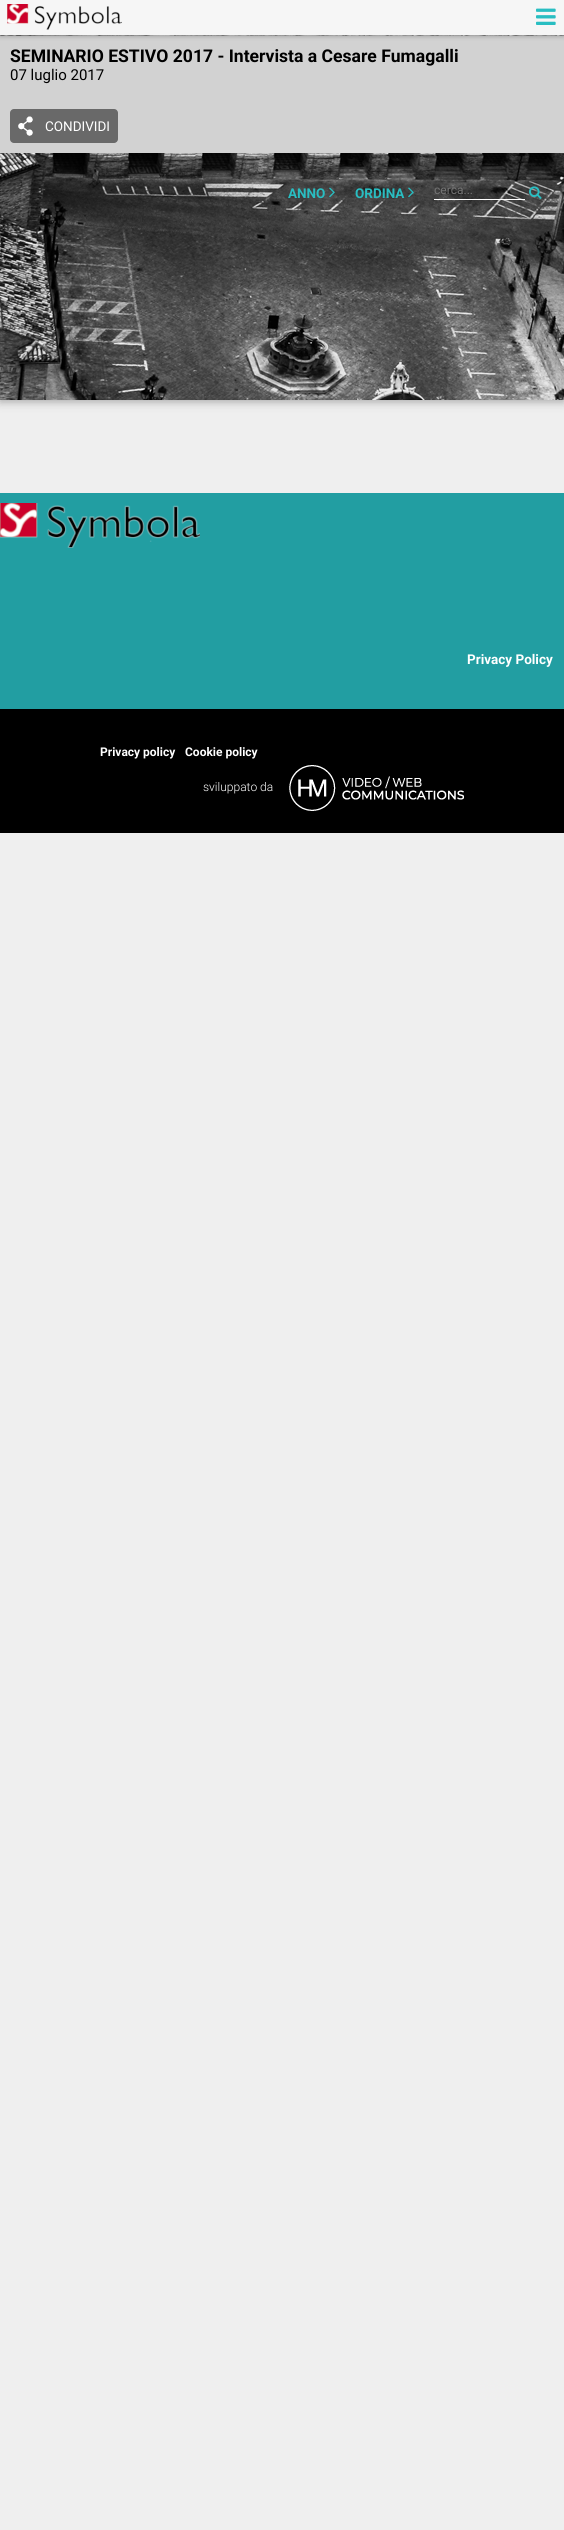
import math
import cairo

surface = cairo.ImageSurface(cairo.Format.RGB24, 564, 2530)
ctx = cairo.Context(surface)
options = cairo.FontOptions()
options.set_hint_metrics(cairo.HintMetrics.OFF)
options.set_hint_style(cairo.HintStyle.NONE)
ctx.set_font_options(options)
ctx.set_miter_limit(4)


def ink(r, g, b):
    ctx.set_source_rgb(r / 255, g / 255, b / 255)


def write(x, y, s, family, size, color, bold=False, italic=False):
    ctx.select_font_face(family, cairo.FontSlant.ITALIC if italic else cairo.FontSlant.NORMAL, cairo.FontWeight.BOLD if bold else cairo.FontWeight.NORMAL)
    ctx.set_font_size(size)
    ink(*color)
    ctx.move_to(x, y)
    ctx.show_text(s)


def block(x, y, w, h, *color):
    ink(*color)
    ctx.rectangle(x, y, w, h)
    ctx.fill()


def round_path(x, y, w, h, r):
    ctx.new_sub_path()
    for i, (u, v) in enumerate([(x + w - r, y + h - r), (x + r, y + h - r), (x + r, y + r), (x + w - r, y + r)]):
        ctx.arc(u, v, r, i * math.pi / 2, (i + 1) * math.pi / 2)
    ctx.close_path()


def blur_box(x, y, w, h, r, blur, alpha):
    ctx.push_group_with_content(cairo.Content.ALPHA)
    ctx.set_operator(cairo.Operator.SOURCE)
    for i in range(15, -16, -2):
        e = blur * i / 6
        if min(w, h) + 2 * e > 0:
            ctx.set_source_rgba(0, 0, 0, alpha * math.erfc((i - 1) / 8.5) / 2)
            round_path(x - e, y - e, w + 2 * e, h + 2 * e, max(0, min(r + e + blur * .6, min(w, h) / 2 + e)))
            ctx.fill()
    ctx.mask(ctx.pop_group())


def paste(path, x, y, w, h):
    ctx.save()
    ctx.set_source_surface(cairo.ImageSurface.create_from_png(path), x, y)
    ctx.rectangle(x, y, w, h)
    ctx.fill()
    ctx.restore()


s1 = dict(family="Roboto", size=17.55, color=(0, 0, 0), bold=True)
s2 = dict(family="Roboto", size=15, color=(0, 0, 0))
s3 = dict(family="Roboto", size=13.5, color=(255, 255, 255))
s4 = dict(family="Roboto", size=13.5, color=(41, 190, 194), bold=True)
s5 = dict(family="Roboto", size=12, color=(117, 117, 117))
s6 = dict(family="Roboto", size=13.5, color=(255, 255, 255), bold=True)
s7 = dict(family="Roboto", size=12, color=(255, 255, 255), bold=True)
s8 = dict(family="Roboto Light", size=12, color=(255, 255, 255))

ink(239, 239, 239)
ctx.paint()
ink(170, 170, 170)
blur_box(0, 2, 564, 400, 0, 4.5, 1)
paste("pic3.png", 0, 35, 564, 365)
block(0, 36, 564, 117, 210, 210, 210)
ink(153, 153, 153)
blur_box(0, 1, 564, 35, 0, 2.5, 1)
block(0, 0, 564, 35, 246, 246, 246)
paste("pic1.png", 7, 4, 115, 26)
paste("pic2.png", 536, 8, 20, 17)
write(10, 62, "SEMINARIO ESTIVO 2017 - Intervista a Cesare Fumagalli", **s1)
write(10, 80, "07 luglio 2017", **s2)
ink(105, 105, 105)
round_path(10, 109, 108, 34, 4)
ctx.fill()
paste("pic4.png", 18, 116, 15, 20)
write(45, 131, "CONDIVIDI", **s3)
write(288, 198, "ANNO", **s4)
paste("pic5.png", 329, 187, 6, 11)
write(355, 198, "ORDINA", **s4)
paste("pic6.png", 408, 187, 6, 11)
block(434, 199, 91, 1, 255, 255, 255)
write(434, 194, "cerca...", **s5)
paste("pic7.png", 529, 186, 13, 13)
block(0, 493, 564, 216, 34, 158, 162)
paste("pic8.png", 0, 503, 200, 45)
write(467, 664, "Privacy Policy", **s6)
block(0, 709, 564, 124, 0, 0, 0)
write(100, 756, "Privacy policy", **s7)
write(185, 756, "Cookie policy", **s7)
write(203, 791, "sviluppato da", **s8)
paste("pic9.png", 289, 765, 175, 46)
surface.write_to_png("screenshot.png")
